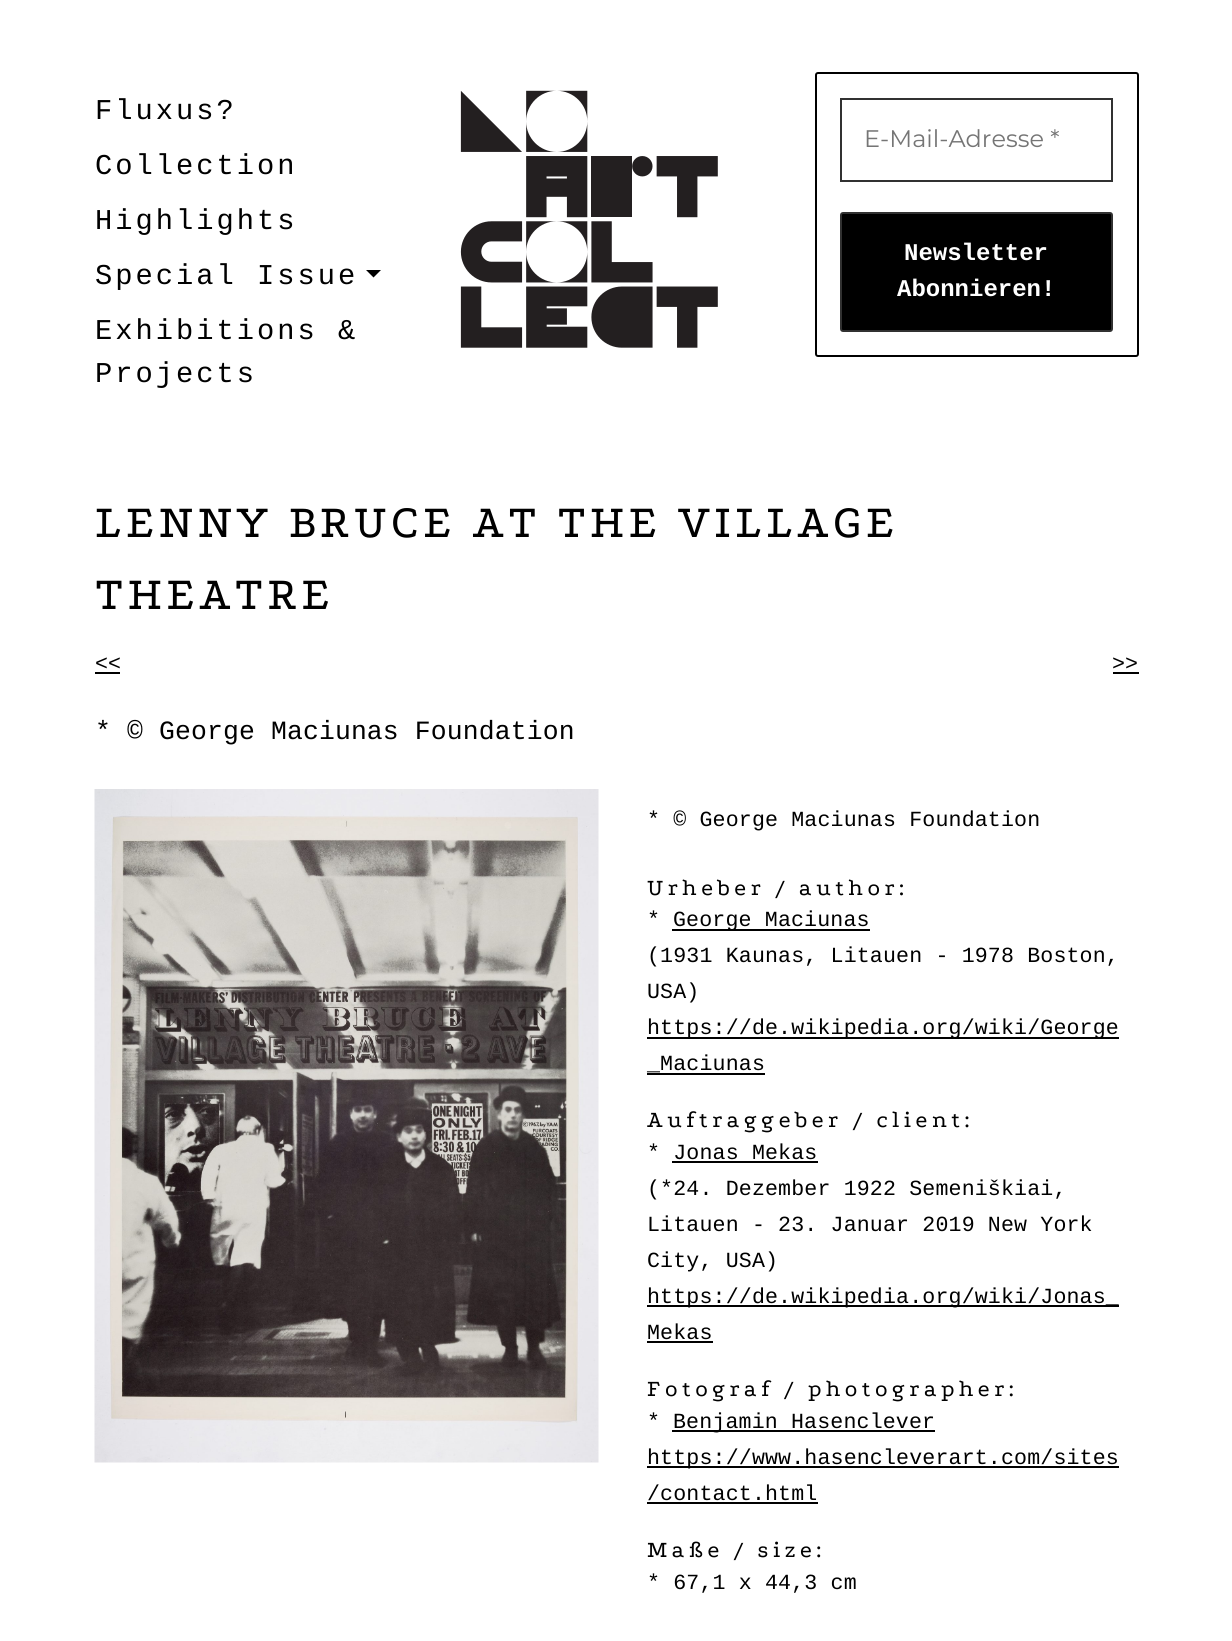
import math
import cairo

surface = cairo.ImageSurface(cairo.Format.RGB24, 1232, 1641)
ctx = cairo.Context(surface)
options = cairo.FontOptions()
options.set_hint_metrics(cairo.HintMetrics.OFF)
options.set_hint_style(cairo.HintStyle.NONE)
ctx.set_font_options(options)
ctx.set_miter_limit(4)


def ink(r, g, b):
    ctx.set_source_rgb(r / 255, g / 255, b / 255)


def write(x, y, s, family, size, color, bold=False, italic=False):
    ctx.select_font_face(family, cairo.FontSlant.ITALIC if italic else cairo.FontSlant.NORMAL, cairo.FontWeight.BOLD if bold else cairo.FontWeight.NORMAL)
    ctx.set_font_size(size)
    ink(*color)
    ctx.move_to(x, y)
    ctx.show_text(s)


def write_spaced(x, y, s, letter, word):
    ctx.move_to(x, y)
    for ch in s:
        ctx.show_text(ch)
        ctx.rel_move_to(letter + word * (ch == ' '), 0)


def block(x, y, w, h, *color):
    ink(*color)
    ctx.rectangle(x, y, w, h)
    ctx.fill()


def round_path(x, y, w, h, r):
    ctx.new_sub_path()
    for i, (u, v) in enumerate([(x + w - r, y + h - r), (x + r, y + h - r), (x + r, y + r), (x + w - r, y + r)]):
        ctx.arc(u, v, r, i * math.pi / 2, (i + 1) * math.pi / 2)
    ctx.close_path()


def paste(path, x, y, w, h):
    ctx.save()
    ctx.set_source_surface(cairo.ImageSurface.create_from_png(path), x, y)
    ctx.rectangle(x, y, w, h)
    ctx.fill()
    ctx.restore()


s1 = dict(family="Montserrat", size=24, color=(117, 117, 117))
s2 = dict(family="Liberation Mono", size=24, color=(255, 255, 255), bold=True)

ink(255, 255, 255)
ctx.paint()
ctx.select_font_face("Liberation Mono")
ctx.set_font_size(28.75)
ink(0, 0, 0)
write_spaced(95, 119, "Fluxus?", 3, 0)
write_spaced(95, 174, "Collection", 3, 0)
write_spaced(95, 229, "Highlights", 3, 0)
write_spaced(95, 284, "Special Issue", 3, 0)
ctx.new_path()
ctx.move_to(366, 270)
ctx.line_to(381, 270)
ctx.line_to(373.5, 277.5)
ctx.close_path()
ctx.fill()
write_spaced(95, 339, "Exhibitions &", 3, 0)
write_spaced(95, 382, "Projects", 3, 0)
paste("pic1.png", 460, 90, 258, 258)
round_path(816, 73, 322, 283, 2)
ctx.stroke()
ctx.rectangle(841, 99, 271, 82)
ink(49, 49, 49)
ctx.stroke()
write(864, 147, "E-Mail-Adresse *", **s1)
ink(0, 0, 0)
round_path(841, 213, 271, 118, 2)
ctx.fill_preserve()
ink(49, 49, 49)
ctx.stroke()
write(904, 260, "Newsletter", **s2)
write(897, 296, "Abonnieren!", **s2)
ctx.select_font_face("Podkova")
ctx.set_font_size(48)
ink(0, 0, 0)
write_spaced(95, 537, "LENNY BRUCE AT THE VILLAGE", 4.5, 0)
write_spaced(95, 609, "THEATRE", 4.5, 0)
ctx.select_font_face("Liberation Mono")
ctx.set_font_size(21.6)
write_spaced(95, 670, "<<", 0.15, 0)
block(95, 672, 25, 2, 0, 0, 0)
write_spaced(1112, 670, ">>", 0.15, 0)
block(1113, 672, 26, 2, 0, 0, 0)
ctx.set_font_size(26.4)
write_spaced(95, 739, "* © George Maciunas Foundation", 0.15, 0)
paste("pic2.png", 94, 789, 505, 674)
ctx.set_font_size(21.6)
write_spaced(647, 826, "* © George Maciunas Foundation", 0.15, 0)
ctx.select_font_face("Podkova")
ctx.set_font_size(24)
write_spaced(647, 895, "Urheber / author:", 4.5, 0)
ctx.select_font_face("Liberation Mono")
ctx.set_font_size(21.6)
write_spaced(647, 926, "*", 0.15, 0)
block(672, 929, 198, 2, 0, 0, 0)
write_spaced(673, 926, "George Maciunas", 0.15, 0)
write_spaced(647, 962, "(1931 Kaunas, Litauen - 1978 Boston,", 0.15, 0)
write_spaced(647, 998, "USA)", 0.15, 0)
block(647, 1037, 472, 2, 0, 0, 0)
write_spaced(647, 1034, "https://de.wikipedia.org/wiki/George", 0.15, 0)
write_spaced(647, 1070, "_Maciunas", 0.15, 0)
block(647, 1073, 118, 2, 0, 0, 0)
ctx.select_font_face("Podkova")
ctx.set_font_size(24)
write_spaced(647, 1127, "Auftraggeber / client:", 4.5, 0)
ctx.select_font_face("Liberation Mono")
ctx.set_font_size(21.6)
write_spaced(647, 1159, "* Jonas Mekas", 0.15, 0)
block(672, 1161, 146, 2, 0, 0, 0)
write_spaced(647, 1195, "(*24. Dezember 1922 Semeniškiai,", 0.15, 0)
write_spaced(647, 1231, "Litauen - 23. Januar 2019 New York", 0.15, 0)
write_spaced(647, 1267, "City, USA)", 0.15, 0)
block(647, 1305, 472, 2, 0, 0, 0)
write_spaced(647, 1303, "https://de.wikipedia.org/wiki/Jonas_", 0.15, 0)
write_spaced(647, 1339, "Mekas", 0.15, 0)
block(647, 1341, 66, 2, 0, 0, 0)
ctx.select_font_face("Podkova")
ctx.set_font_size(24)
write_spaced(647, 1396, "Fotograf / photographer:", 4.5, 0)
ctx.select_font_face("Liberation Mono")
ctx.set_font_size(21.6)
write_spaced(647, 1428, "*", 0.15, 0)
block(672, 1430, 263, 2, 0, 0, 0)
write_spaced(673, 1428, "Benjamin Hasenclever", 0.15, 0)
block(647, 1466, 472, 2, 0, 0, 0)
write_spaced(647, 1464, "https://www.hasencleverart.com/sites", 0.15, 0)
write_spaced(647, 1500, "/contact.html", 0.15, 0)
block(647, 1502, 171, 2, 0, 0, 0)
ctx.select_font_face("Podkova")
ctx.set_font_size(24)
write_spaced(647, 1557, "Maße / size:", 4.5, 0)
ctx.select_font_face("Liberation Mono")
ctx.set_font_size(21.6)
write_spaced(647, 1589, "* 67,1 x 44,3 cm", 0.15, 0)
surface.write_to_png("screenshot.png")
